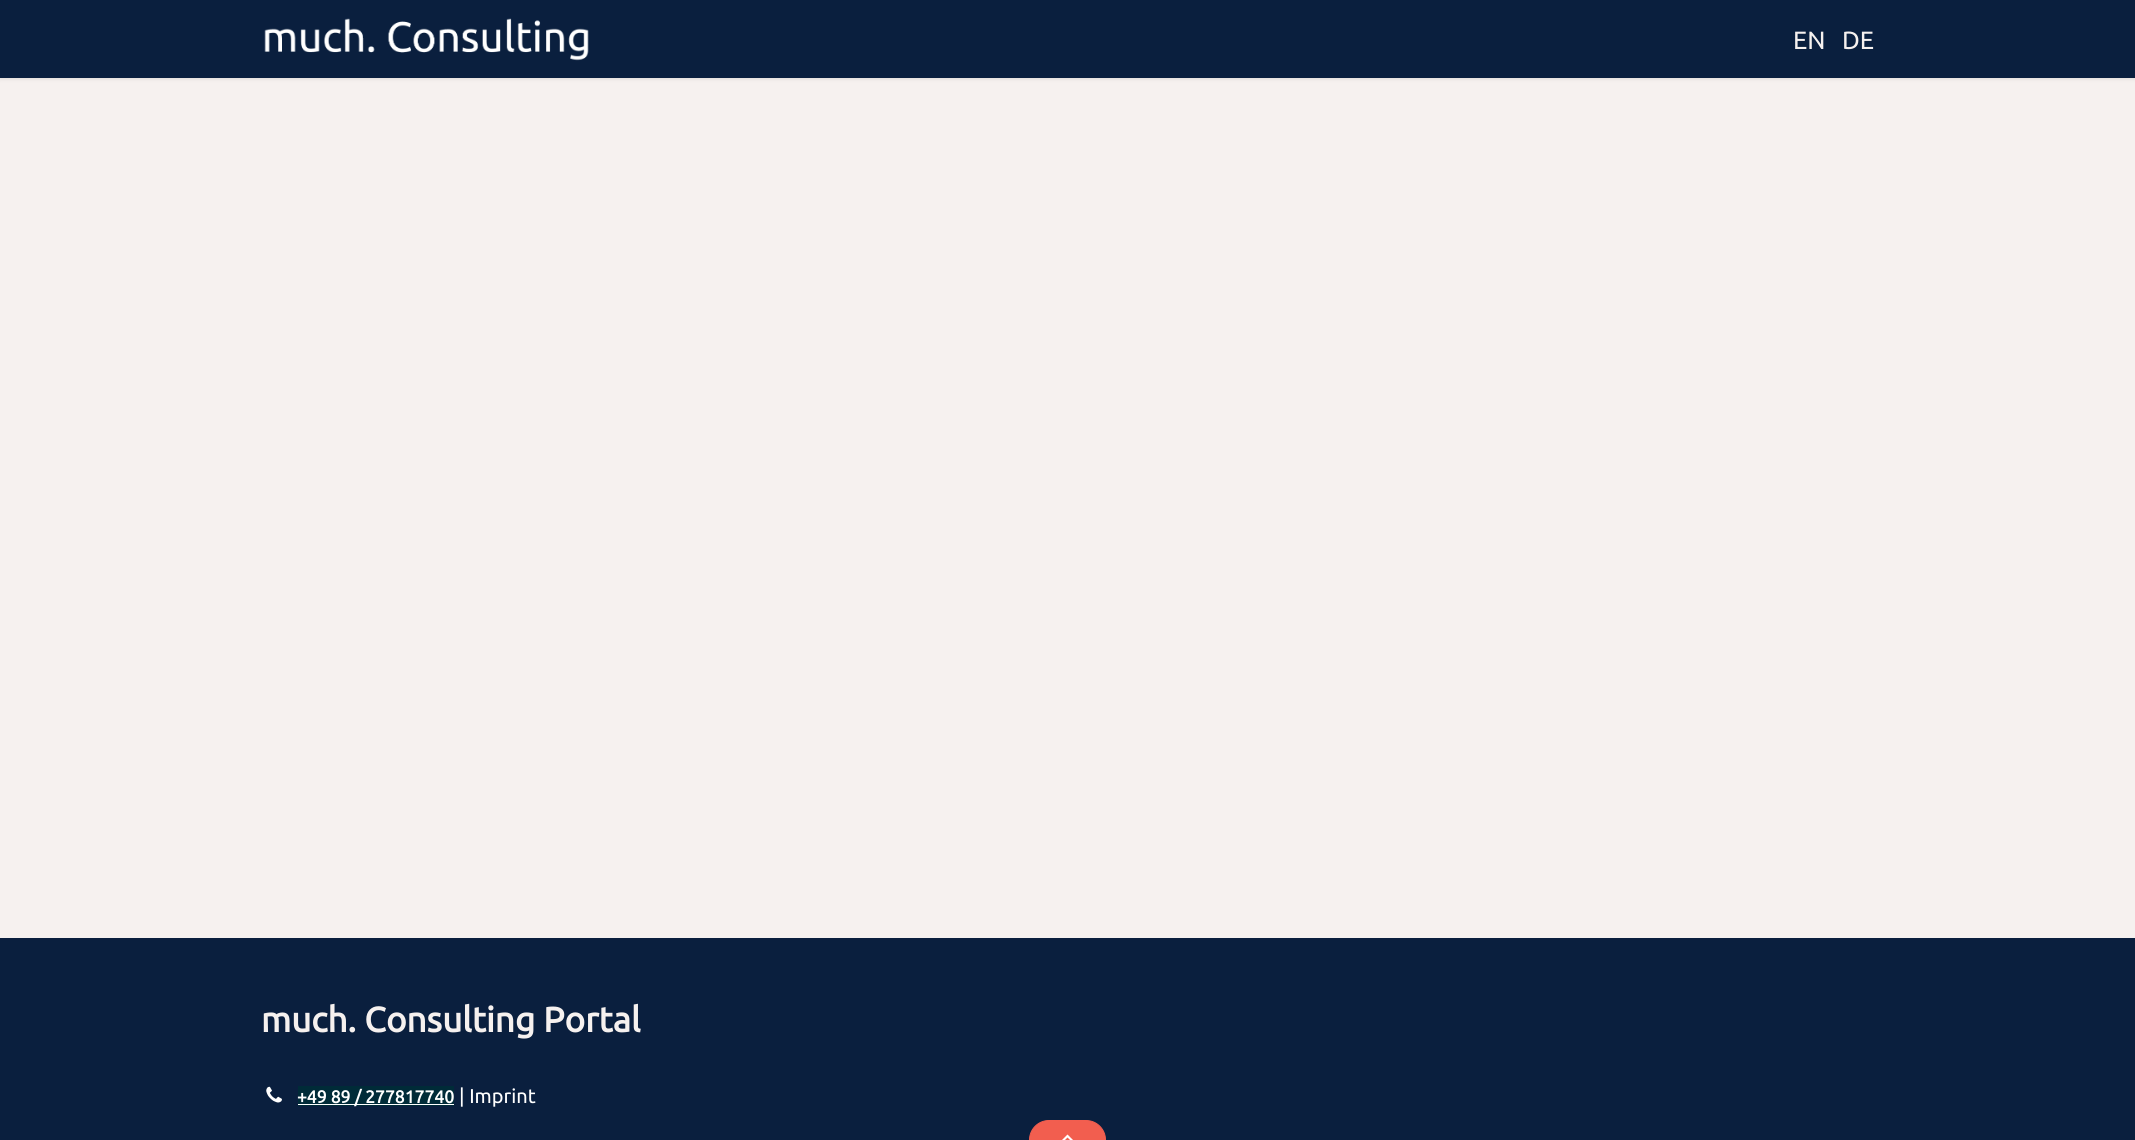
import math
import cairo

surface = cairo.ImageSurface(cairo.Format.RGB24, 2135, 1140)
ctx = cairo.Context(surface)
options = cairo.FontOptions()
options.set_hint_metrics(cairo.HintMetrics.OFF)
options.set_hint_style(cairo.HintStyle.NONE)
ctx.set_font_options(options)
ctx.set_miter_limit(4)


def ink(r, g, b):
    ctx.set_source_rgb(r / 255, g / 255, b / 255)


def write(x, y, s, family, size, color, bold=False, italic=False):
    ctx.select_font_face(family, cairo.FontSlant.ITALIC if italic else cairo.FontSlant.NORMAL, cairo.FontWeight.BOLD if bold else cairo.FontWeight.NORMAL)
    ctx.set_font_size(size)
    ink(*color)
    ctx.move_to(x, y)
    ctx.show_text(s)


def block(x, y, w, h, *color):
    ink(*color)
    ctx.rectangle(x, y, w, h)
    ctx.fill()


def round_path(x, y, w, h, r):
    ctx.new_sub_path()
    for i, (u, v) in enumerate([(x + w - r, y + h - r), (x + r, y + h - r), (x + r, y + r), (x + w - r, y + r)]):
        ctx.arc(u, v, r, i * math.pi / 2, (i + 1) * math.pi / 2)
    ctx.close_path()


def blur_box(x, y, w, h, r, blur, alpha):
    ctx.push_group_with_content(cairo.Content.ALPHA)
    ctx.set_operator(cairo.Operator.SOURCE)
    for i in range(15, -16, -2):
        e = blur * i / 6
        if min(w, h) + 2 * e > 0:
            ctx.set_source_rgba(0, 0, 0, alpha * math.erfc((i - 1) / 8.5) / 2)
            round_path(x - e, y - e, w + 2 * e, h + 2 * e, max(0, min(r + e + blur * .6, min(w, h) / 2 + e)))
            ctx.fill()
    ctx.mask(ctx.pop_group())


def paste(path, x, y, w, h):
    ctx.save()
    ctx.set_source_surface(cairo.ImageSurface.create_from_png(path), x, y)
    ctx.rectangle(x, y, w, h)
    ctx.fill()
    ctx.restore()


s1 = dict(family="Ubuntu", size=25, color=(246, 241, 239))
s2 = dict(family="Ubuntu", size=35, color=(246, 241, 239), bold=True)
s3 = dict(family="Ubuntu", size=17.5, color=(255, 255, 255), bold=True)
s4 = dict(family="Ubuntu", size=20, color=(255, 255, 255))

ink(246, 241, 239)
ctx.paint()
ink(0, 0, 0)
blur_box(0, 1, 2135, 78, 0, 2, 0.1)
block(0, 0, 2135, 78, 10, 31, 62)
paste("pic1.png", 264, 18, 325, 43)
write(1793, 49, "EN", **s1)
write(1842, 49, "DE", **s1)
block(0, 938, 2135, 202, 10, 31, 62)
write(261, 1032, "much. Consulting Portal", **s2)
paste("pic2.png", 266, 1086, 16, 17)
block(298, 1086, 156, 20, 0, 43, 56)
block(298, 1104, 156, 1, 255, 255, 255)
write(297, 1103, "+49 89 / 277817740", **s3)
write(459, 1103, "| Imprint", **s4)
ink(242, 94, 79)
round_path(1029.5, 1120.5, 76, 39, 19.5)
ctx.fill_preserve()
ctx.set_line_width(1)
ctx.stroke()
ink(255, 255, 255)
ctx.new_path()
ctx.move_to(1067.5, 1134.5)
ctx.line_to(1077.5, 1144.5)
ctx.line_to(1076, 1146)
ctx.line_to(1067.5, 1137.5)
ctx.line_to(1059, 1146)
ctx.line_to(1057.5, 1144.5)
ctx.close_path()
ctx.fill()
surface.write_to_png("screenshot.png")
